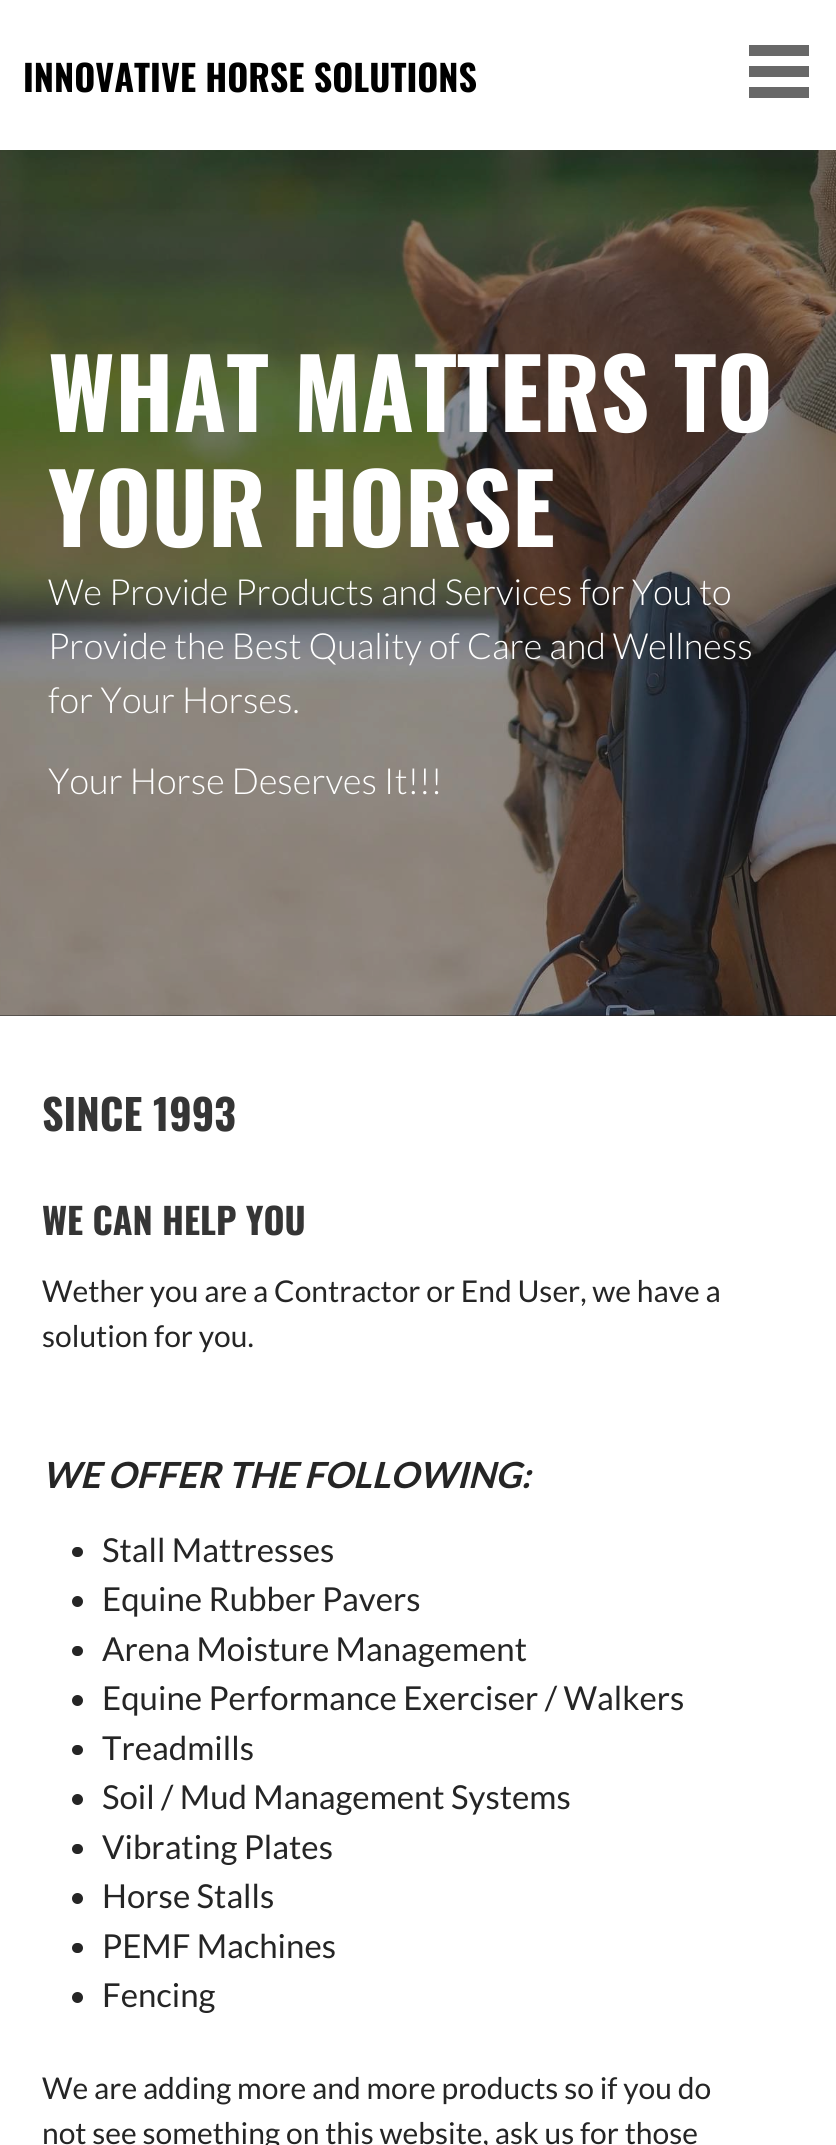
import math
import cairo

surface = cairo.ImageSurface(cairo.Format.RGB24, 836, 2145)
ctx = cairo.Context(surface)
options = cairo.FontOptions()
options.set_hint_metrics(cairo.HintMetrics.OFF)
options.set_hint_style(cairo.HintStyle.NONE)
ctx.set_font_options(options)
ctx.set_miter_limit(4)


def ink(r, g, b):
    ctx.set_source_rgb(r / 255, g / 255, b / 255)


def write(x, y, s, family, size, color, bold=False, italic=False):
    ctx.select_font_face(family, cairo.FontSlant.ITALIC if italic else cairo.FontSlant.NORMAL, cairo.FontWeight.BOLD if bold else cairo.FontWeight.NORMAL)
    ctx.set_font_size(size)
    ink(*color)
    ctx.move_to(x, y)
    ctx.show_text(s)


def block(x, y, w, h, *color):
    ink(*color)
    ctx.rectangle(x, y, w, h)
    ctx.fill()


def round_path(x, y, w, h, r):
    ctx.new_sub_path()
    for i, (u, v) in enumerate([(x + w - r, y + h - r), (x + r, y + h - r), (x + r, y + r), (x + w - r, y + r)]):
        ctx.arc(u, v, r, i * math.pi / 2, (i + 1) * math.pi / 2)
    ctx.close_path()


def paste(path, x, y, w, h):
    ctx.save()
    ctx.set_source_surface(cairo.ImageSurface.create_from_png(path), x, y)
    ctx.rectangle(x, y, w, h)
    ctx.fill()
    ctx.restore()


s1 = dict(family="Oswald", size=36, color=(0, 0, 0), bold=True)
s2 = dict(family="Oswald", size=96, color=(255, 255, 255), bold=True)
s3 = dict(family="Lato Light", size=36, color=(255, 255, 255))
s4 = dict(family="Oswald", size=42, color=(53, 53, 53), bold=True)
s5 = dict(family="Oswald", size=36, color=(53, 53, 53), bold=True)
s6 = dict(family="Lato", size=30, color=(37, 37, 37))
s7 = dict(family="Lato", size=36, color=(37, 37, 37), bold=True, italic=True)
s8 = dict(family="Lato", size=33, color=(37, 37, 37))

ink(255, 255, 255)
ctx.paint()
write(23, 92, "INNOVATIVE HORSE SOLUTIONS", **s1)
block(749, 45, 60, 11, 104, 104, 104)
block(749, 66, 60, 11, 104, 104, 104)
block(749, 87, 60, 11, 104, 104, 104)
block(0, 1015, 836, 1, 37, 37, 37)
paste("pic1.png", 0, 150, 836, 866)
write(48, 432, "WHAT MATTERS TO", **s2)
write(48, 547, "YOUR HORSE", **s2)
write(48, 605, "We Provide Products and Services for You to", **s3)
write(48, 659, "Provide the Best Quality of Care and Wellness", **s3)
write(48, 713, "for Your Horses.", **s3)
write(48, 794, "Your Horse Deserves It!!!", **s3)
write(42, 1131, "SINCE 1993", **s4)
write(42, 1235, "WE CAN HELP YOU", **s5)
write(42, 1302, "Wether you are a Contractor or End User, we have a", **s6)
write(42, 1347, "solution for you.", **s6)
write(42, 1488, "WE OFFER THE FOLLOWING:", **s7)
round_path(72, 1547, 11, 10, 5)
ctx.fill()
write(102, 1562, "Stall Mattresses", **s8)
ctx.new_path()
ctx.arc(77.5, 1601.5, 5.5, 0, 2 * math.pi)
ctx.fill()
write(102, 1611, "Equine Rubber Pavers", **s8)
round_path(72, 1646, 11, 10, 5)
ctx.fill()
write(102, 1661, "Arena Moisture Management", **s8)
ctx.new_path()
ctx.arc(77.5, 1700.5, 5.5, 0, 2 * math.pi)
ctx.fill()
write(102, 1710, "Equine Performance Exerciser / Walkers", **s8)
round_path(72, 1745, 11, 10, 5)
ctx.fill()
write(102, 1760, "Treadmills", **s8)
ctx.new_path()
ctx.arc(77.5, 1799.5, 5.5, 0, 2 * math.pi)
ctx.fill()
write(102, 1809, "Soil / Mud Management Systems", **s8)
round_path(72, 1844, 11, 10, 5)
ctx.fill()
write(102, 1859, "Vibrating Plates", **s8)
ctx.new_path()
ctx.arc(77.5, 1898.5, 5.5, 0, 2 * math.pi)
ctx.fill()
write(102, 1908, "Horse Stalls", **s8)
round_path(72, 1943, 11, 10, 5)
ctx.fill()
write(102, 1958, "PEMF Machines", **s8)
ctx.new_path()
ctx.arc(77.5, 1997.5, 5.5, 0, 2 * math.pi)
ctx.fill()
write(102, 2007, "Fencing", **s8)
write(42, 2099, "We are adding more and more products so if you do", **s6)
write(42, 2144, "not see something on this website, ask us for those", **s6)
surface.write_to_png("screenshot.png")
